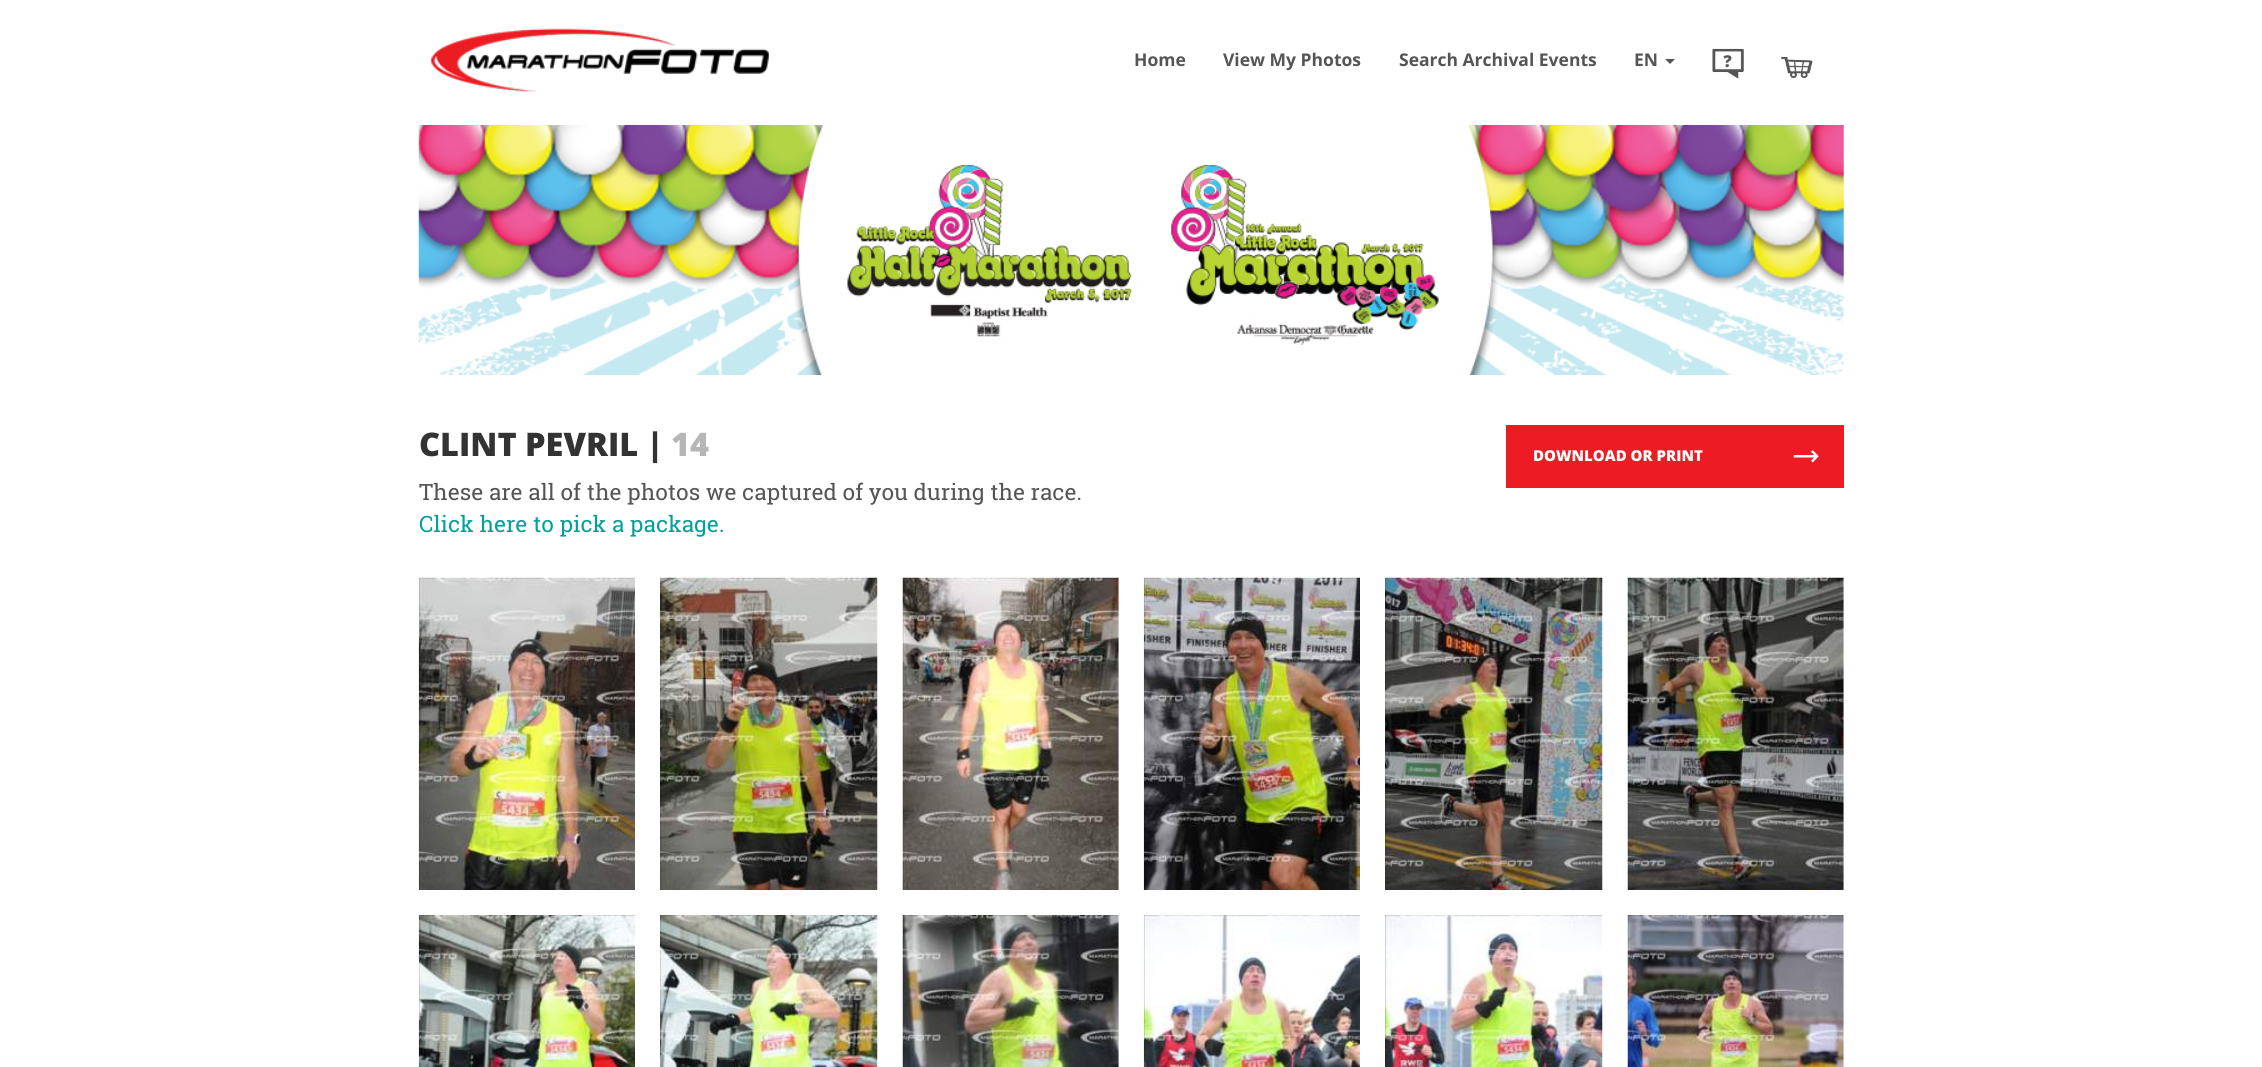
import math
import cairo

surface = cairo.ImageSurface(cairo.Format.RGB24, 2262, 1067)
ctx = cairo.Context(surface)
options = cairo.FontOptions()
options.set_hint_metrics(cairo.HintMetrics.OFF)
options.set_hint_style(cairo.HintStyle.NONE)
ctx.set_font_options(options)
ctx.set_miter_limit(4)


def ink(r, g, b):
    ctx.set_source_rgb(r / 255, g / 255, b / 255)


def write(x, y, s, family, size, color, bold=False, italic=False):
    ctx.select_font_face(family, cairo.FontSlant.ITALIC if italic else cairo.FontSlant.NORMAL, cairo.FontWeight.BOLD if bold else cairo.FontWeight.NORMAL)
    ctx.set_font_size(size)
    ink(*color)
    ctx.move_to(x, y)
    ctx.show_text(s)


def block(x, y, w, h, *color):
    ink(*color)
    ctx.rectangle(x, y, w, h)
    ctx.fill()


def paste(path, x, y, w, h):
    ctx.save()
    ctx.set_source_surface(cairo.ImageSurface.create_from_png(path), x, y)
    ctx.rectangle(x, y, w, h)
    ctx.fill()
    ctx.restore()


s1 = dict(family="Open Sans", size=17.5, color=(85, 85, 85), bold=True)
s2 = dict(family="Open Sans ExtraBold", size=32.5, color=(51, 51, 51))
s3 = dict(family="Open Sans ExtraBold", size=32.5, color=(182, 182, 182))
s4 = dict(family="Roboto Slab", size=22.5, color=(85, 85, 85))
s5 = dict(family="Roboto Slab", size=22.5, color=(2, 160, 155))
s6 = dict(family="Open Sans ExtraBold", size=15, color=(255, 255, 255))

ink(255, 255, 255)
ctx.paint()
paste("pic1.png", 431, 28, 338, 65)
write(1134, 66, "Home", **s1)
write(1223, 66, "View My Photos", **s1)
write(1399, 66, "Search Archival Events", **s1)
write(1634, 66, "EN", **s1)
ctx.new_path()
ctx.move_to(1665, 59)
ctx.line_to(1675, 59)
ctx.line_to(1670, 64)
ctx.close_path()
ctx.fill()
paste("pic2.png", 1712, 48, 32, 31)
paste("pic3.png", 1781, 57, 32, 21)
paste("pic4.png", 418, 125, 1426, 250)
write(419, 456, "CLINT PEVRIL |", **s2)
write(671, 456, "14", **s3)
write(419, 500, "These are all of the photos we captured of you during the race.", **s4)
write(419, 532, "Click here to pick a package.", **s5)
block(1506, 425, 338, 63, 237, 28, 36)
write(1533, 461, "DOWNLOAD OR PRINT", **s6)
paste("pic5.png", 1793, 450, 26, 13)
paste("pic6.png", 418, 577, 217, 313)
paste("pic7.png", 660, 577, 218, 313)
paste("pic8.png", 902, 577, 217, 313)
paste("pic9.png", 1143, 577, 217, 313)
paste("pic10.png", 1385, 577, 218, 313)
paste("pic11.png", 1627, 577, 217, 313)
paste("pic12.png", 418, 915, 217, 152)
paste("pic13.png", 660, 915, 218, 152)
paste("pic14.png", 902, 915, 217, 152)
paste("pic15.png", 1143, 915, 217, 152)
paste("pic16.png", 1385, 915, 218, 152)
paste("pic17.png", 1627, 915, 217, 152)
surface.write_to_png("screenshot.png")
